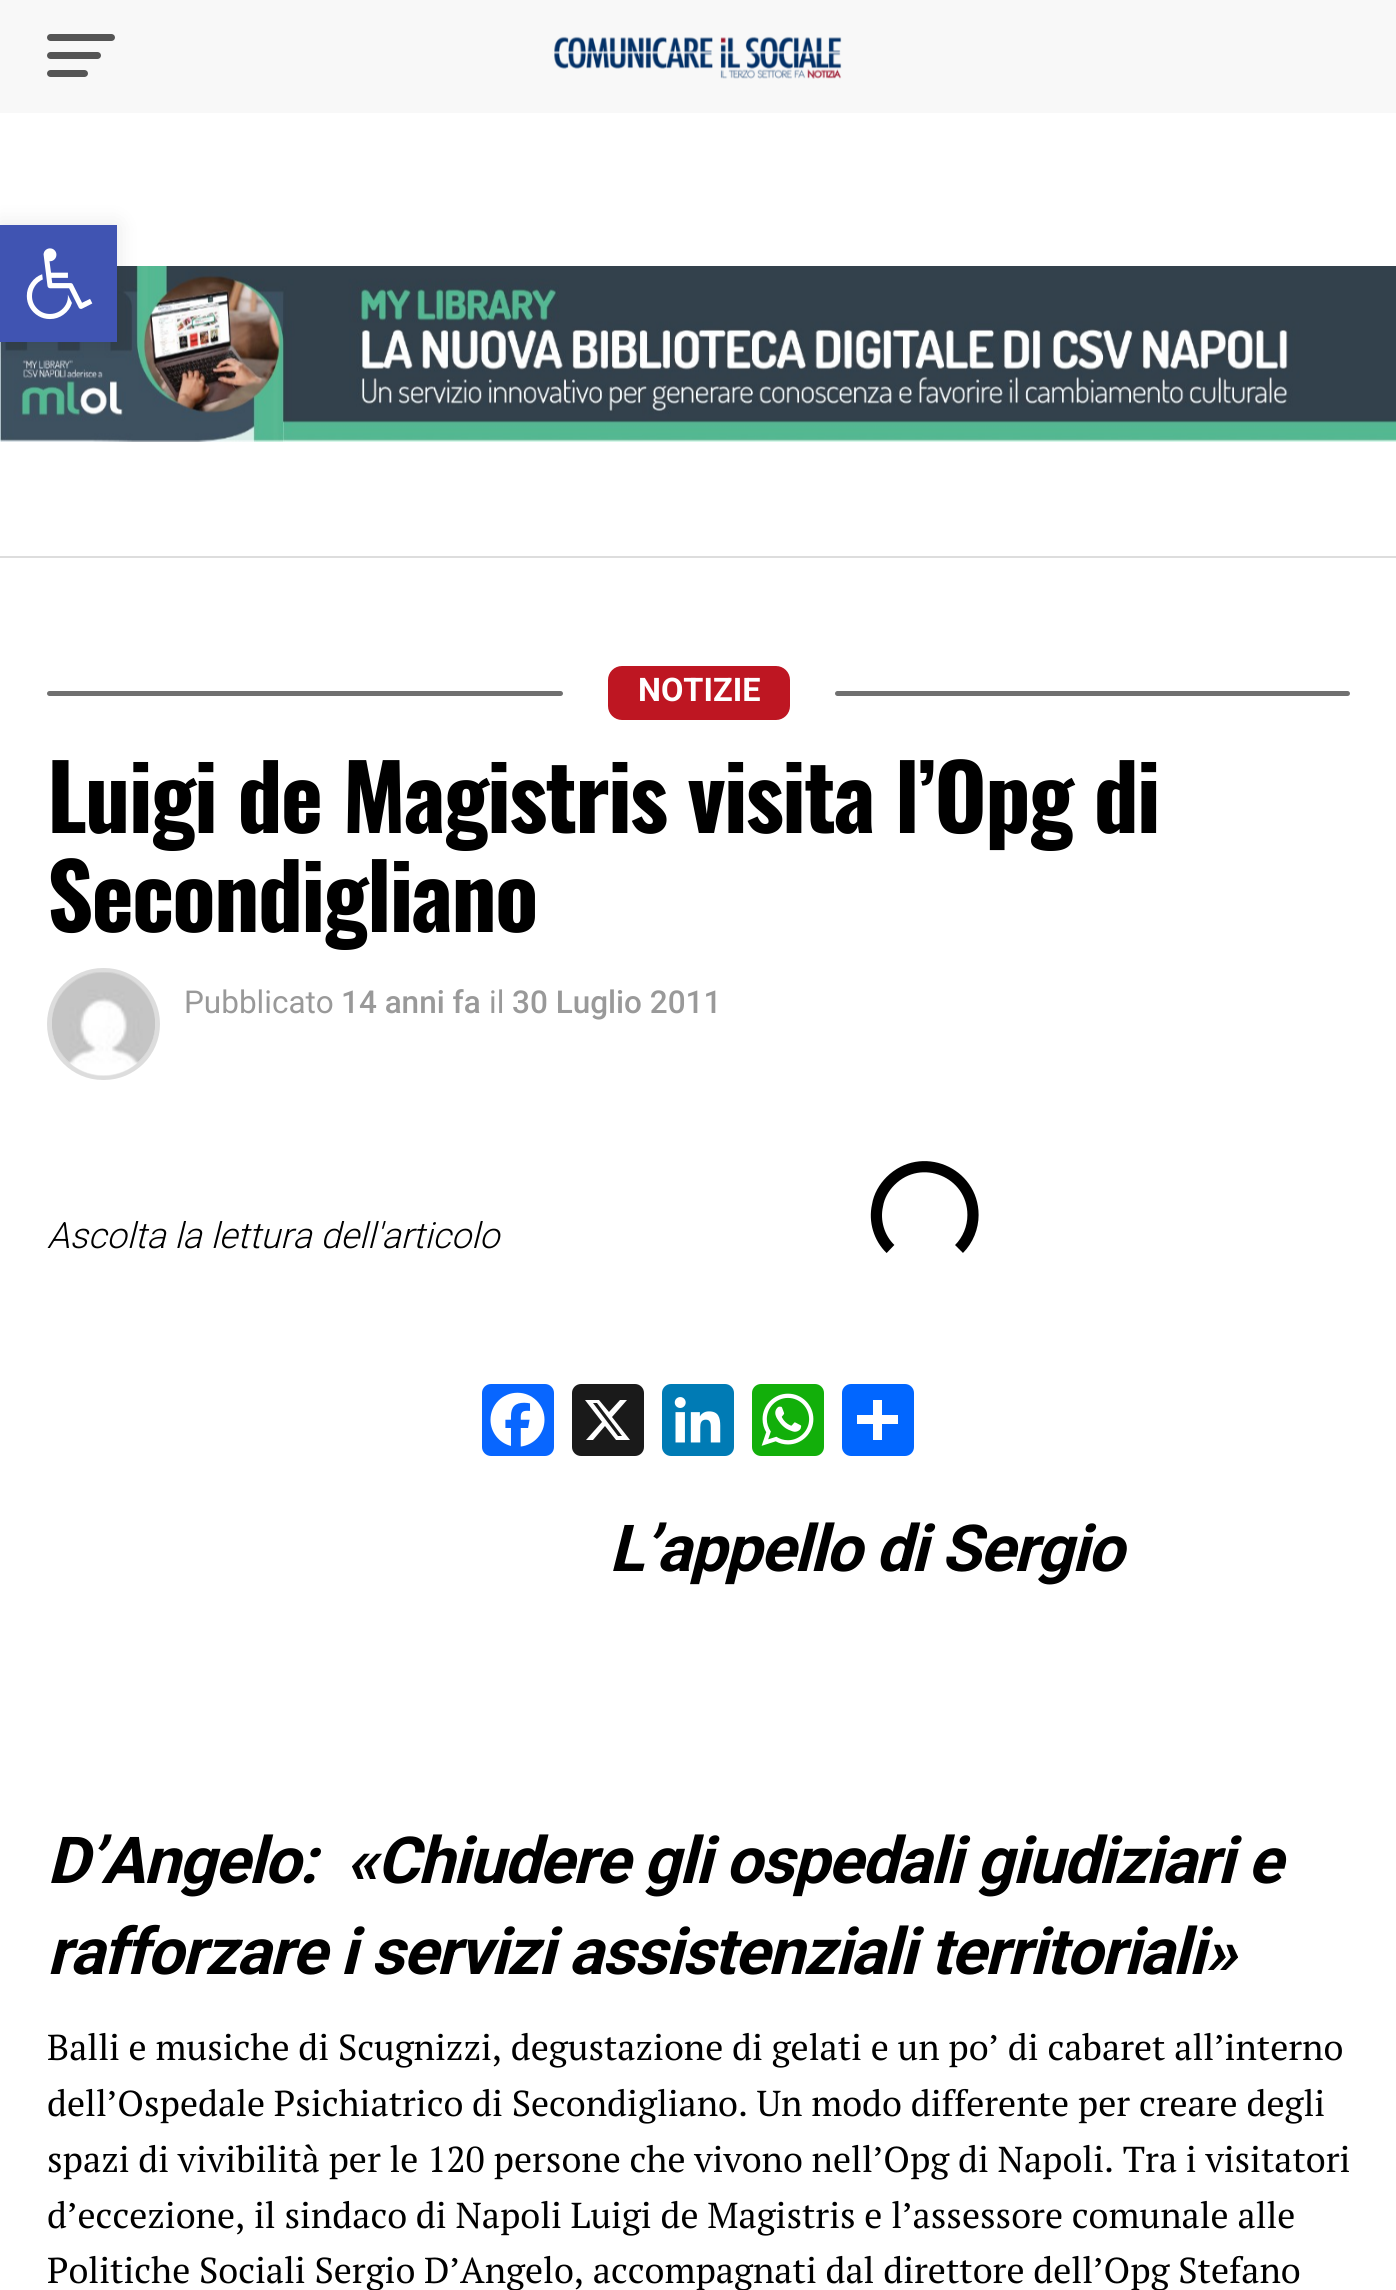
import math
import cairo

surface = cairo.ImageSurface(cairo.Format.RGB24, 1396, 2290)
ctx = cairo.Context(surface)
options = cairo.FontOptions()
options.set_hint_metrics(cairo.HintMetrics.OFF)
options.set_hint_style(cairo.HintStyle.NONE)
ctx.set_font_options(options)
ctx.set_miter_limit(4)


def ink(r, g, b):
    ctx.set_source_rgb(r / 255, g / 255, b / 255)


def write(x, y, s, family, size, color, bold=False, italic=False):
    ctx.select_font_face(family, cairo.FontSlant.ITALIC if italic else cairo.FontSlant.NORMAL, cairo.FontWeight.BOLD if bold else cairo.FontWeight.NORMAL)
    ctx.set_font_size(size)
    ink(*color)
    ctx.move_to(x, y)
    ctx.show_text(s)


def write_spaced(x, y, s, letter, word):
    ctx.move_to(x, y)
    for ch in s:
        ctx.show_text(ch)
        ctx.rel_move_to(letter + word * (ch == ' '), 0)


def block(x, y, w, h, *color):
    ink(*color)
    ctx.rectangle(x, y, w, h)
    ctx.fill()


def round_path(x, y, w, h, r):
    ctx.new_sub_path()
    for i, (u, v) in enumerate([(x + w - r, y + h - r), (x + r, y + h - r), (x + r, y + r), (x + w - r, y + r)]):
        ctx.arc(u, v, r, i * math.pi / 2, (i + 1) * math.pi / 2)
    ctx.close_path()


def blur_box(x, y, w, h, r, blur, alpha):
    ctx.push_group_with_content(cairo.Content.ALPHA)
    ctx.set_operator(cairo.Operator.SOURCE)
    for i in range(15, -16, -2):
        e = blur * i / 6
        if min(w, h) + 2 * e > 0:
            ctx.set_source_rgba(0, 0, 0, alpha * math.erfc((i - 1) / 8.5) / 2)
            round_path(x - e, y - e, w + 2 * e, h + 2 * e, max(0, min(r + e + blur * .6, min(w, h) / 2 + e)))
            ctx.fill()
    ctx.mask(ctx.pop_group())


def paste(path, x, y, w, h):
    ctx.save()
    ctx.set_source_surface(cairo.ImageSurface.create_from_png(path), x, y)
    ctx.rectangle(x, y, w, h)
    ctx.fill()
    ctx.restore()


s1 = dict(family="Roboto", size=32.5, color=(255, 255, 255), bold=True)
s2 = dict(family="Roboto", size=31.5, color=(153, 153, 153))
s3 = dict(family="Roboto Medium", size=31.5, color=(153, 153, 153))
s4 = dict(family="Roboto Light", size=36, color=(0, 0, 0), italic=True)
s5 = dict(family="PT Serif", size=36, color=(0, 0, 0))

ink(255, 255, 255)
ctx.paint()
paste("pic3.png", 0, 266, 1396, 176)
ink(0, 0, 0)
blur_box(0, 225, 117, 117, 0, 11, 0.1)
block(0, 225, 117, 117, 64, 84, 178)
paste("pic1.png", 26, 248, 67, 72)
block(0, 0, 1396, 113, 248, 248, 248)
ink(85, 85, 85)
round_path(47, 34, 68, 7, 3.5)
ctx.fill()
round_path(47, 52, 54, 7, 3.5)
ctx.fill()
round_path(47, 70, 41, 7, 3.5)
ctx.fill()
paste("pic2.png", 554, 36, 288, 43)
block(0, 556, 1396, 2, 221, 221, 221)
ink(112, 112, 112)
round_path(47, 691, 516, 5, 2.5)
ctx.fill()
ink(190, 22, 34)
round_path(608, 666, 182, 54, 14)
ctx.fill()
write(638, 701, "NOTIZIE", **s1)
ink(112, 112, 112)
round_path(835, 691, 515, 5, 2.5)
ctx.fill()
ctx.select_font_face("Oswald", cairo.FontSlant.NORMAL, cairo.FontWeight.BOLD)
ctx.set_font_size(90)
ink(0, 0, 0)
write_spaced(47, 833, "Luigi de Magistris visita l’Opg di", -1.8, 0)
write_spaced(47, 932, "Secondigliano", -1.8, 0)
round_path(49.5, 970.5, 108, 107, 53.5)
ink(221, 221, 221)
ctx.set_line_width(5)
ctx.stroke()
paste("pic4.png", 52, 972, 103, 104)
write(184, 1013, "Pubblicato", **s2)
write(341, 1013, "14 anni fa", **s3)
write(489, 1013, "il", **s2)
write(512, 1013, "30 Luglio 2011", **s3)
write(47, 1248, "Ascolta la lettura dell'articolo", **s4)
ctx.new_path()
ctx.move_to(890.5, 1249)
ctx.curve_to(879, 1238, 874, 1221, 877.5, 1205.5)
ctx.curve_to(879, 1196, 884, 1187.5, 890.5, 1181)
ctx.curve_to(921, 1150.5, 973, 1172, 973, 1215)
ctx.curve_to(973, 1227.5, 968, 1240, 959, 1249)
ctx.set_line_width(11.2)
ctx.stroke()
ink(8, 102, 255)
round_path(482, 1384, 72, 72, 9)
ctx.fill()
paste("pic5.png", 490, 1392, 55, 55)
ink(26, 26, 26)
round_path(572, 1384, 72, 72, 9)
ctx.fill()
ink(255, 255, 255)
ctx.new_path()
ctx.move_to(620, 1400)
ctx.line_to(627, 1400)
ctx.line_to(612, 1417)
ctx.line_to(630, 1440)
ctx.line_to(616, 1440)
ctx.line_to(605, 1426)
ctx.line_to(593, 1440)
ctx.line_to(586, 1440)
ctx.line_to(602, 1422)
ctx.line_to(585, 1400)
ctx.line_to(599, 1400)
ctx.line_to(609, 1412)
ctx.close_path()
ctx.move_to(618, 1436)
ctx.line_to(622, 1436)
ctx.line_to(597, 1403)
ctx.line_to(593, 1403)
ctx.close_path()
ctx.fill()
ink(0, 123, 181)
round_path(662, 1384, 72, 72, 9)
ctx.fill()
paste("pic6.png", 674, 1397, 47, 46)
ink(18, 175, 10)
round_path(752, 1384, 72, 72, 9)
ctx.fill()
paste("pic7.png", 761, 1393, 53, 53)
ink(1, 102, 255)
round_path(842, 1384, 72, 72, 9)
ctx.fill()
block(873, 1400, 9, 40, 255, 255, 255)
block(857, 1415, 41, 9, 255, 255, 255)
ctx.select_font_face("Roboto", cairo.FontSlant.ITALIC, cairo.FontWeight.BOLD)
ctx.set_font_size(64.75)
ink(0, 0, 0)
write_spaced(609, 1571, "L’appello di Sergio", -1.3, 0)
write_spaced(47, 1883, "D’Angelo:  «Chiudere gli ospedali giudiziari e", -1.3, 0)
write_spaced(47, 1974, "rafforzare i servizi assistenziali territoriali»", -1.3, 0)
write(47, 2060, "Balli e musiche di Scugnizzi, degustazione di gelati e un po’ di cabaret all’interno", **s5)
write(47, 2116, "dell’Ospedale Psichiatrico di Secondigliano. Un modo differente per creare degli", **s5)
write(47, 2172, "spazi di vivibilità per le 120 persone che vivono nell’Opg di Napoli. Tra i visitatori", **s5)
write(47, 2228, "d’eccezione, il sindaco di Napoli Luigi de Magistris e l’assessore comunale alle", **s5)
write(47, 2283, "Politiche Sociali Sergio D’Angelo, accompagnati dal direttore dell’Opg Stefano", **s5)
surface.write_to_png("screenshot.png")
